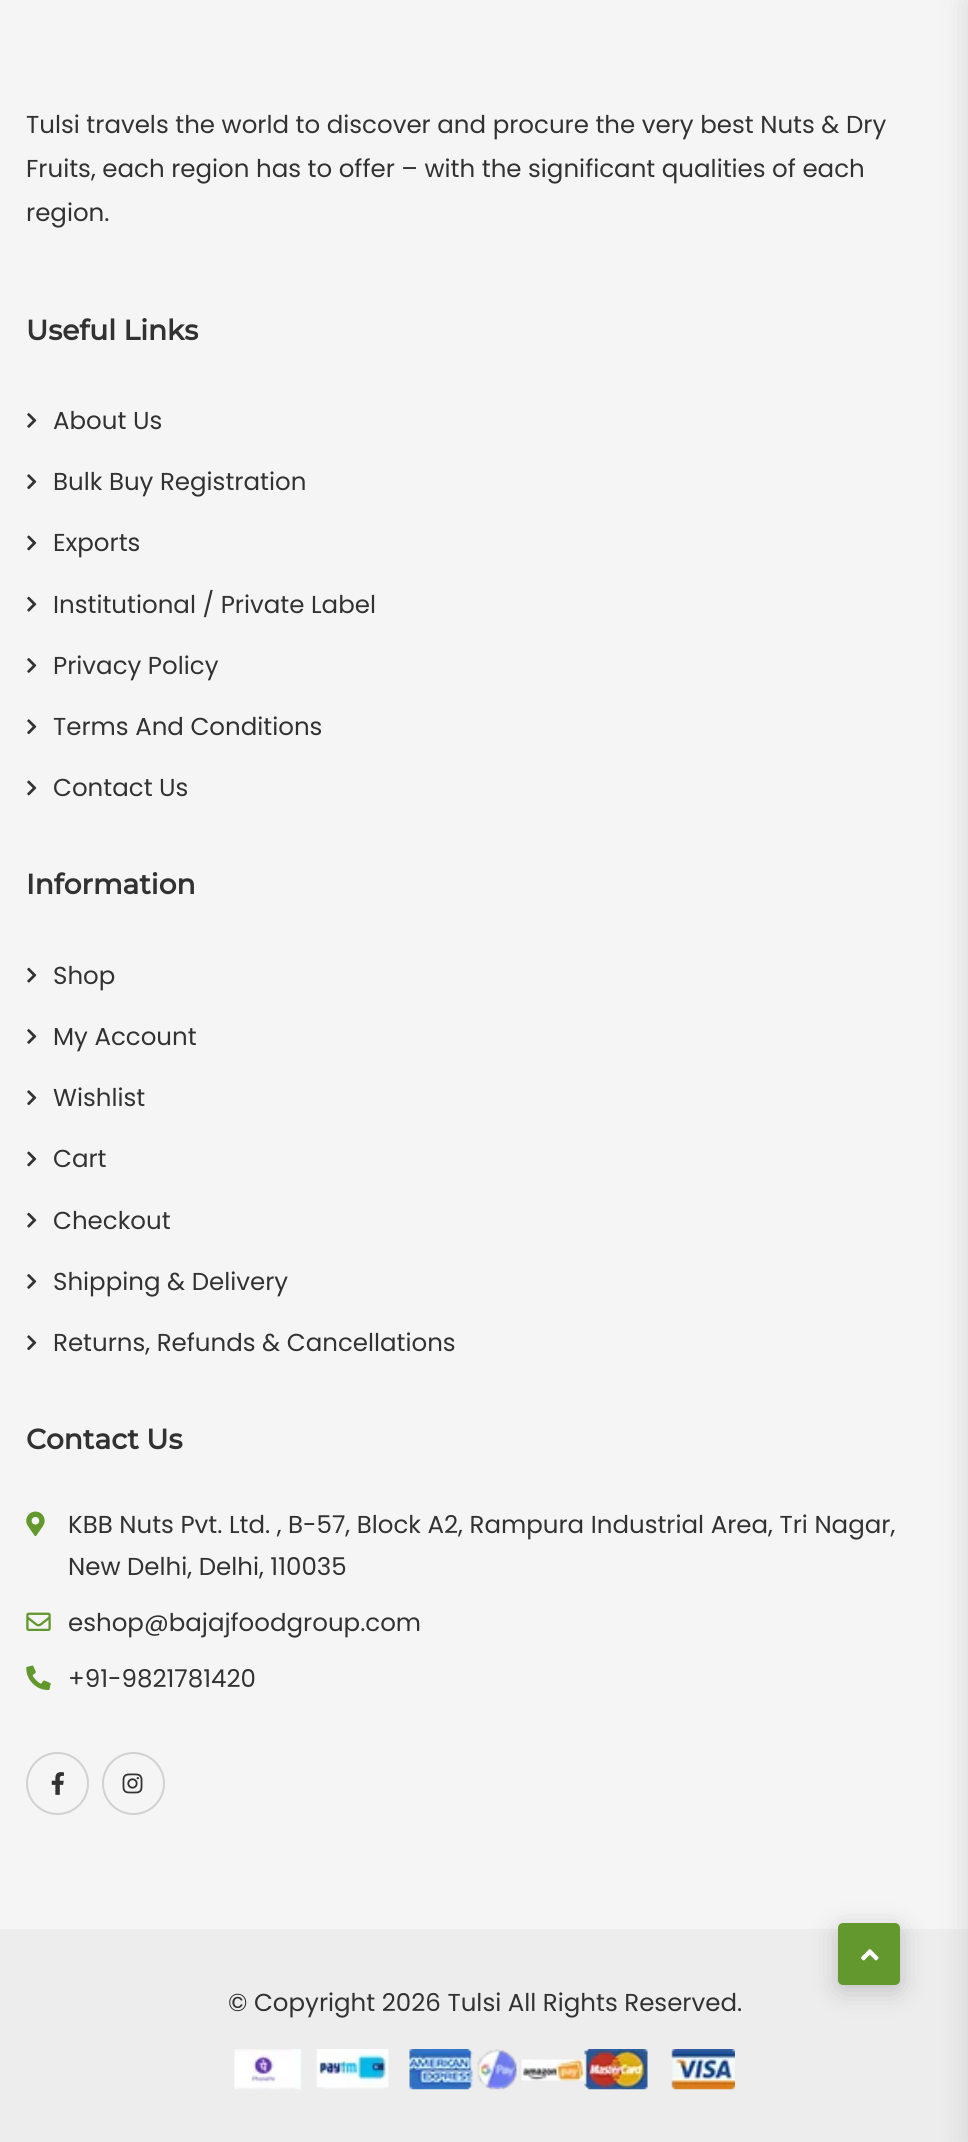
import math
import cairo

surface = cairo.ImageSurface(cairo.Format.RGB24, 968, 2142)
ctx = cairo.Context(surface)
options = cairo.FontOptions()
options.set_hint_metrics(cairo.HintMetrics.OFF)
options.set_hint_style(cairo.HintStyle.NONE)
ctx.set_font_options(options)
ctx.set_miter_limit(4)


def ink(r, g, b):
    ctx.set_source_rgb(r / 255, g / 255, b / 255)


def write(x, y, s, family, size, color, bold=False, italic=False):
    ctx.select_font_face(family, cairo.FontSlant.ITALIC if italic else cairo.FontSlant.NORMAL, cairo.FontWeight.BOLD if bold else cairo.FontWeight.NORMAL)
    ctx.set_font_size(size)
    ink(*color)
    ctx.move_to(x, y)
    ctx.show_text(s)


def block(x, y, w, h, *color):
    ink(*color)
    ctx.rectangle(x, y, w, h)
    ctx.fill()


def round_path(x, y, w, h, r):
    ctx.new_sub_path()
    for i, (u, v) in enumerate([(x + w - r, y + h - r), (x + r, y + h - r), (x + r, y + r), (x + w - r, y + r)]):
        ctx.arc(u, v, r, i * math.pi / 2, (i + 1) * math.pi / 2)
    ctx.close_path()


def blur_box(x, y, w, h, r, blur, alpha):
    ctx.push_group_with_content(cairo.Content.ALPHA)
    ctx.set_operator(cairo.Operator.SOURCE)
    for i in range(15, -16, -2):
        e = blur * i / 6
        if min(w, h) + 2 * e > 0:
            ctx.set_source_rgba(0, 0, 0, alpha * math.erfc((i - 1) / 8.5) / 2)
            round_path(x - e, y - e, w + 2 * e, h + 2 * e, max(0, min(r + e + blur * .6, min(w, h) / 2 + e)))
            ctx.fill()
    ctx.mask(ctx.pop_group())


def paste(path, x, y, w, h):
    ctx.save()
    ctx.set_source_surface(cairo.ImageSurface.create_from_png(path), x, y)
    ctx.rectangle(x, y, w, h)
    ctx.fill()
    ctx.restore()


s1 = dict(family="Poppins", size=24.5, color=(50, 50, 50))
s2 = dict(family="Montserrat", size=28, color=(50, 50, 50), bold=True)

ink(245, 245, 245)
ctx.paint()
write(26, 133, "Tulsi travels the world to discover and procure the very best Nuts & Dry", **s1)
write(26, 177, "Fruits, each region has to offer – with the significant qualities of each", **s1)
write(26, 221, "region.", **s1)
write(26, 340, "Useful Links", **s2)
paste("pic1.png", 27, 413, 10, 15)
write(53, 429, "About Us", **s1)
paste("pic2.png", 27, 474, 10, 16)
write(53, 490, "Bulk Buy Registration", **s1)
paste("pic3.png", 27, 535, 10, 16)
write(53, 551, "Exports", **s1)
paste("pic4.png", 27, 596, 10, 16)
write(53, 613, "Institutional / Private Label", **s1)
paste("pic1.png", 27, 658, 10, 15)
write(53, 674, "Privacy Policy", **s1)
paste("pic2.png", 27, 719, 10, 16)
write(53, 735, "Terms And Conditions", **s1)
paste("pic3.png", 27, 780, 10, 16)
write(53, 796, "Contact Us", **s1)
write(26, 894, "Information", **s2)
paste("pic4.png", 27, 967, 10, 16)
write(53, 984, "Shop", **s1)
paste("pic1.png", 27, 1029, 10, 15)
write(53, 1045, "My Account", **s1)
paste("pic2.png", 27, 1090, 10, 16)
write(53, 1106, "Wishlist", **s1)
paste("pic3.png", 27, 1151, 10, 16)
write(53, 1167, "Cart", **s1)
paste("pic4.png", 27, 1212, 10, 16)
write(53, 1229, "Checkout", **s1)
paste("pic1.png", 27, 1274, 10, 15)
write(53, 1290, "Shipping & Delivery", **s1)
paste("pic2.png", 27, 1335, 10, 16)
write(53, 1351, "Returns, Refunds & Cancellations", **s1)
write(26, 1449, "Contact Us", **s2)
paste("pic5.png", 26, 1511, 19, 25)
write(68, 1533, "KBB Nuts Pvt. Ltd. , B-57, Block A2, Rampura Industrial Area, Tri Nagar,", **s1)
write(68, 1575, "New Delhi, Delhi, 110035", **s1)
paste("pic6.png", 26, 1612, 25, 19)
write(68, 1631, "eshop@bajajfoodgroup.com", **s1)
paste("pic7.png", 26, 1665, 25, 26)
write(68, 1687, "+91-9821781420", **s1)
ctx.new_path()
ctx.arc(57.5, 1783.5, 30.5, 0, 2 * math.pi)
ink(209, 209, 209)
ctx.stroke()
paste("pic8.png", 51, 1772, 13, 23)
ctx.arc(133.5, 1783.5, 30.5, 0, 2 * math.pi)
ctx.stroke()
paste("pic9.png", 122, 1773, 21, 21)
block(0, 1929, 968, 213, 237, 237, 237)
write(228, 2011, "© Copyright 2026 Tulsi All Rights Reserved.", **s1)
paste("pic10.png", 234, 2049, 501, 41)
ink(0, 0, 0)
blur_box(838, 1929, 62, 61, 5, 13, 0.2)
ink(99, 152, 46)
round_path(838, 1923, 62, 62, 5)
ctx.fill()
paste("pic11.png", 861, 1949, 18, 12)
ink(0, 0, 0)
blur_box(964, 0, 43, 2142, 0, 13, 0.1)
surface.write_to_png("screenshot.png")
